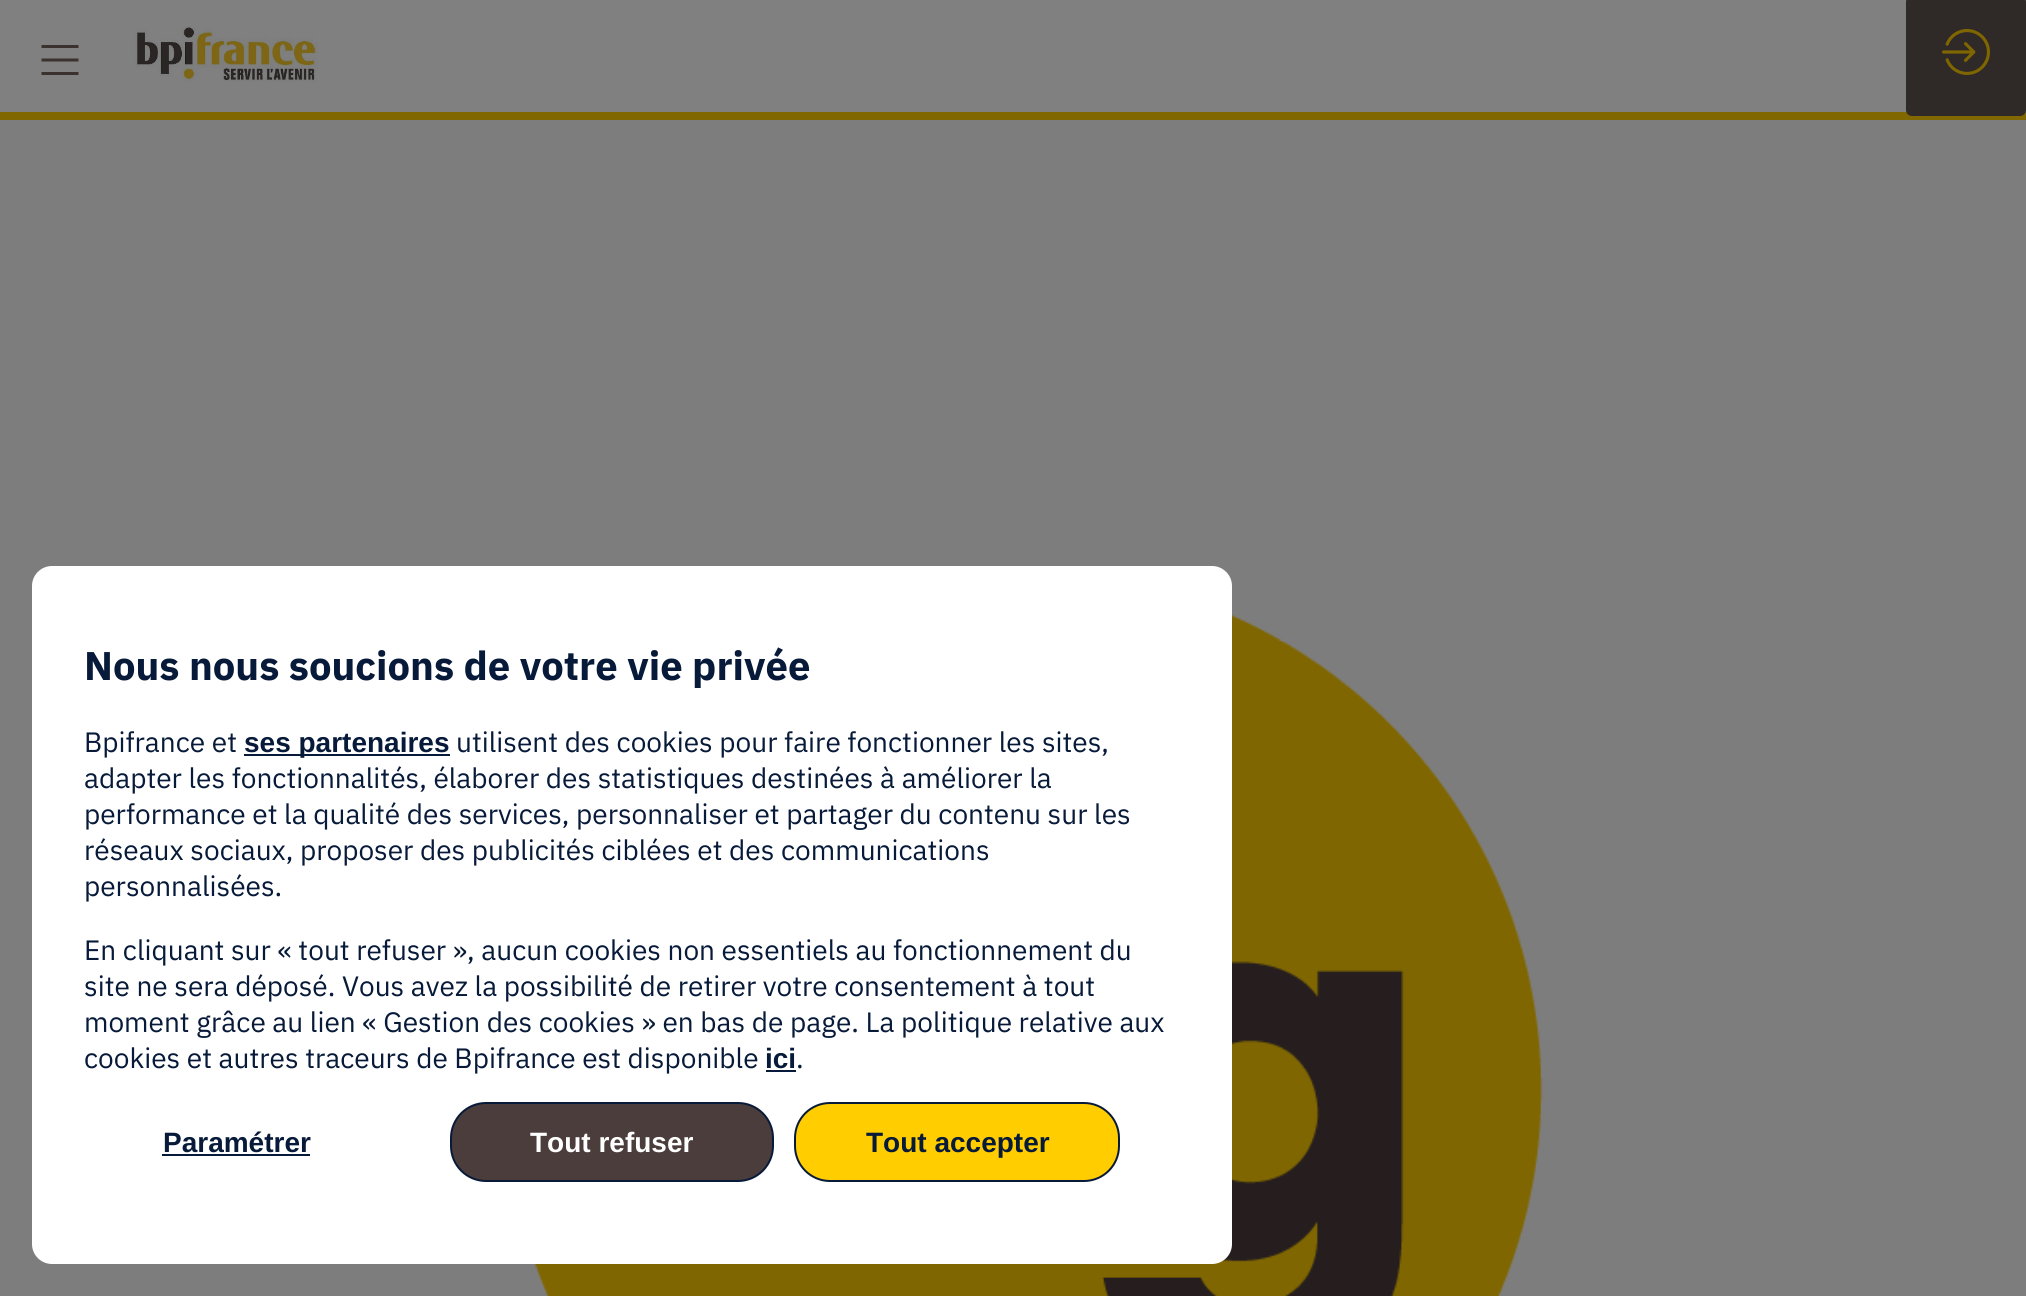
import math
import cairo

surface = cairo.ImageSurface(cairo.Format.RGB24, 2026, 1296)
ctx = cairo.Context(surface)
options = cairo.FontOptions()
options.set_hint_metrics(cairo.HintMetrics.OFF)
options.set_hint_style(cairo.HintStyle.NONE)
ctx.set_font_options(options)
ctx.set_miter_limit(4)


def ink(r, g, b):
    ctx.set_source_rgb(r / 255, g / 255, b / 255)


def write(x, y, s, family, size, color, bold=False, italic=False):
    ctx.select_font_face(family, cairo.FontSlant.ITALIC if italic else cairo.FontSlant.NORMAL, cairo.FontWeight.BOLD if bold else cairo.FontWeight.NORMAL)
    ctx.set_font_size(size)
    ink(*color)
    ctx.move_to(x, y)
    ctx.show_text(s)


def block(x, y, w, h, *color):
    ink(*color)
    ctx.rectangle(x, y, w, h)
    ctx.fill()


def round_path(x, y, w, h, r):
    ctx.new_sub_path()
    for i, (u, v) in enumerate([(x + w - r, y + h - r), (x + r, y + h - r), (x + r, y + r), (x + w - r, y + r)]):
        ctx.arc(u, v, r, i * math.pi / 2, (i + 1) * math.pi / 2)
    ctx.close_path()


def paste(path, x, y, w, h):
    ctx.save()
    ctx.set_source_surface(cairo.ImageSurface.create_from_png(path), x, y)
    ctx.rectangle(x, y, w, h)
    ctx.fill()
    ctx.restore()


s1 = dict(family="IBM Plex Sans", size=40, color=(7, 26, 57), bold=True)
s2 = dict(family="IBM Plex Sans", size=28, color=(7, 26, 57))
s3 = dict(family="Liberation Sans", size=28, color=(7, 26, 57), bold=True)
s4 = dict(family="Liberation Sans", size=28, color=(255, 255, 255), bold=True)

ink(128, 128, 128)
ctx.paint()
block(0, 112, 2026, 8, 128, 103, 0)
paste("pic1.png", 135, 26, 183, 57)
ink(47, 41, 39)
round_path(1907, -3, 118, 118, 5)
ctx.fill_preserve()
ctx.stroke()
paste("pic2.png", 1942, 29, 48, 46)
block(0, 120, 2026, 1176, 125, 125, 125)
paste("pic3.png", 533, 615, 1010, 681)
ink(59, 49, 46)
ctx.new_path()
ctx.move_to(41.5, 45)
ctx.line_to(78.5, 45)
ctx.line_to(78.5, 48)
ctx.line_to(41.5, 48)
ctx.close_path()
ctx.move_to(41.5, 58.5)
ctx.line_to(78.5, 58.5)
ctx.line_to(78.5, 61.5)
ctx.line_to(41.5, 61.5)
ctx.close_path()
ctx.move_to(41.5, 72)
ctx.line_to(78.5, 72)
ctx.line_to(78.5, 75)
ctx.line_to(41.5, 75)
ctx.close_path()
ctx.fill()
ink(255, 255, 255)
round_path(32, 566, 1200, 698, 20)
ctx.fill()
write(84, 680, "Nous nous soucions de votre vie privée", **s1)
write(84, 752, "Bpifrance et", **s2)
block(244, 754, 206, 2, 7, 26, 57)
write(244, 752, "ses partenaires", **s3)
write(456, 752, "utilisent des cookies pour faire fonctionner les sites,", **s2)
write(84, 788, "adapter les fonctionnalités, élaborer des statistiques destinées à améliorer la", **s2)
write(84, 824, "performance et la qualité des services, personnaliser et partager du contenu sur les", **s2)
write(84, 860, "réseaux sociaux, proposer des publicités ciblées et des communications", **s2)
write(84, 896, "personnalisées.", **s2)
write(84, 960, "En cliquant sur « tout refuser », aucun cookies non essentiels au fonctionnement du", **s2)
write(84, 996, "site ne sera déposé. Vous avez la possibilité de retirer votre consentement à tout", **s2)
write(84, 1032, "moment grâce au lien « Gestion des cookies » en bas de page. La politique relative aux", **s2)
write(84, 1068, "cookies et autres traceurs de Bpifrance est disponible", **s2)
write(765, 1068, "ici", **s3)
block(766, 1070, 30, 2, 7, 26, 57)
write(796, 1068, ".", **s2)
write(163, 1152, "Paramétrer", **s3)
block(162, 1154, 148, 2, 7, 26, 57)
ink(75, 61, 60)
round_path(451, 1103, 322, 78, 35)
ctx.fill_preserve()
ink(7, 26, 57)
ctx.stroke()
write(530, 1152, "Tout refuser", **s4)
ink(255, 205, 0)
round_path(795, 1103, 324, 78, 35)
ctx.fill_preserve()
ink(7, 26, 57)
ctx.stroke()
write(866, 1152, "Tout accepter", **s3)
surface.write_to_png("screenshot.png")
